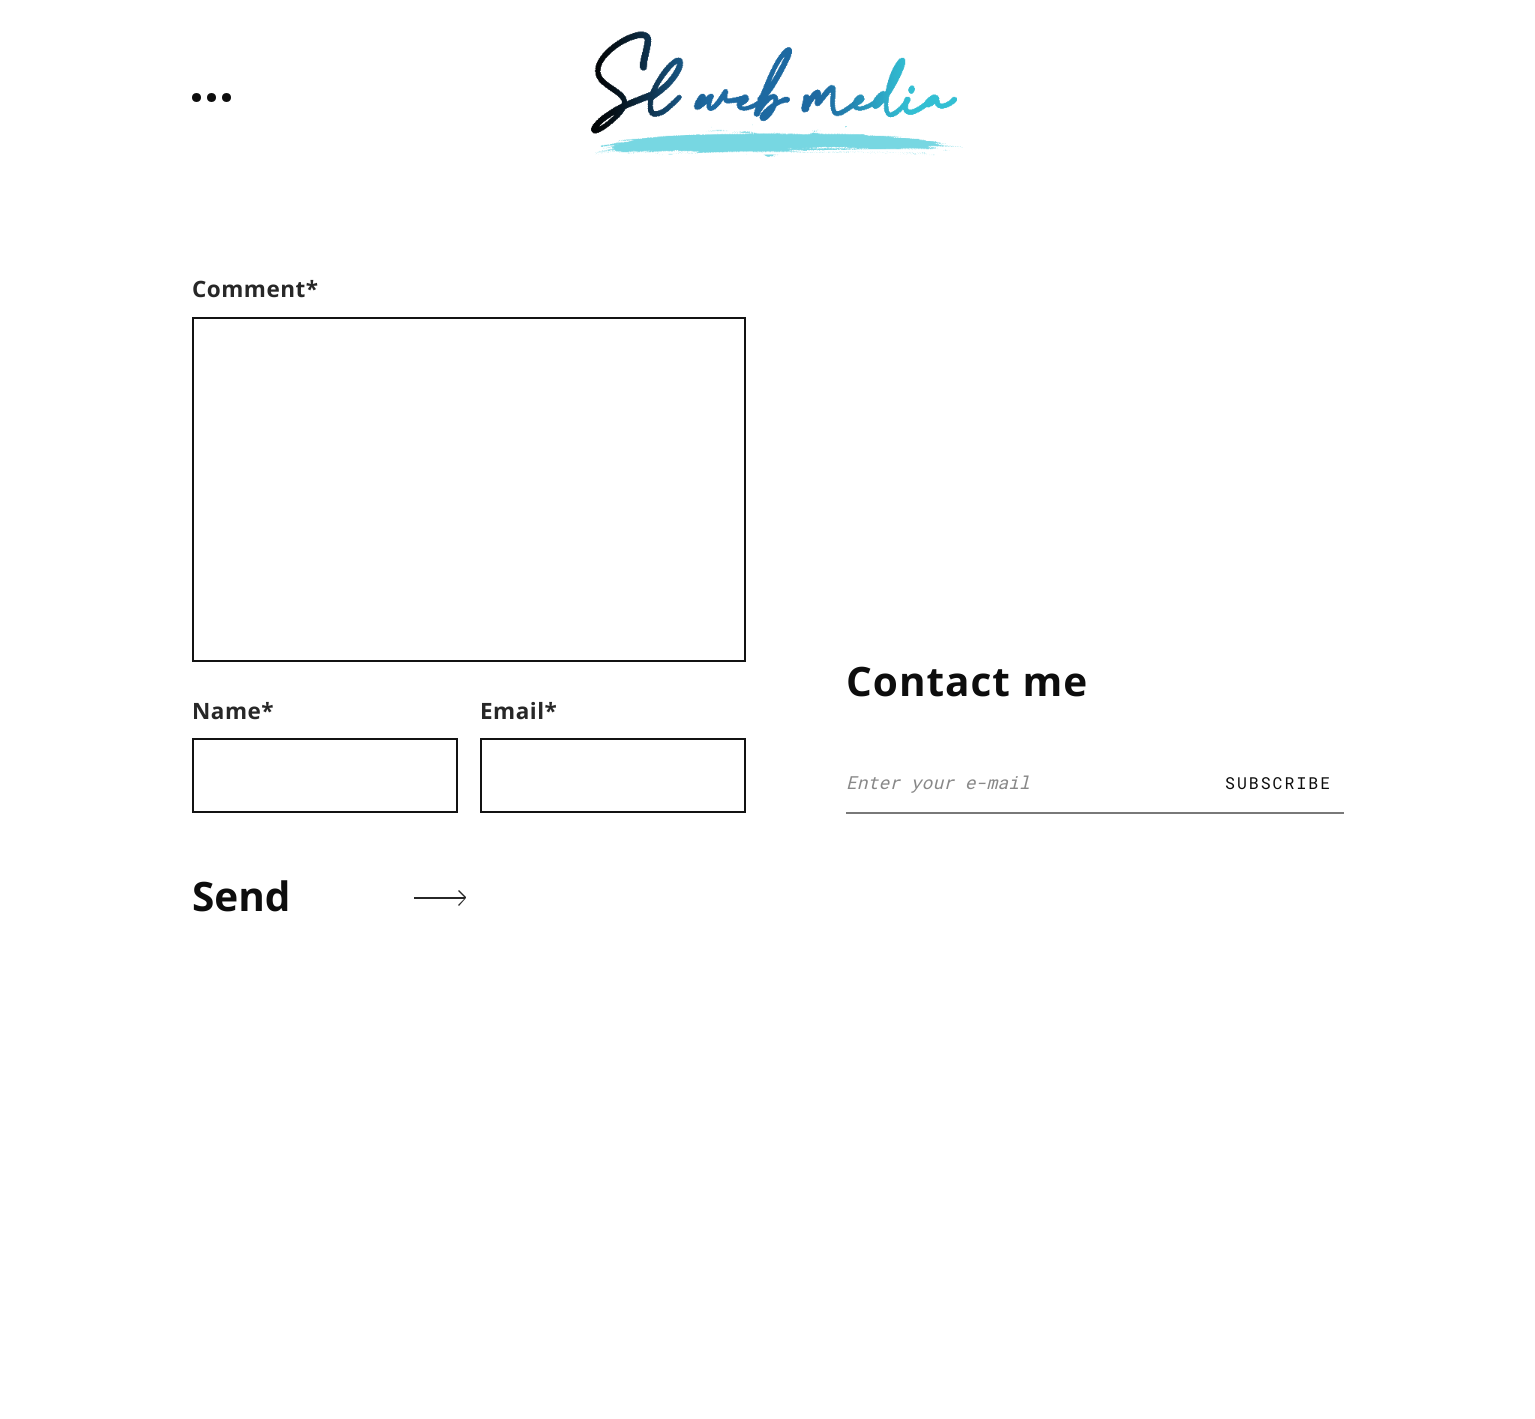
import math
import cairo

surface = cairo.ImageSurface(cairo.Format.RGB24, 1535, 1419)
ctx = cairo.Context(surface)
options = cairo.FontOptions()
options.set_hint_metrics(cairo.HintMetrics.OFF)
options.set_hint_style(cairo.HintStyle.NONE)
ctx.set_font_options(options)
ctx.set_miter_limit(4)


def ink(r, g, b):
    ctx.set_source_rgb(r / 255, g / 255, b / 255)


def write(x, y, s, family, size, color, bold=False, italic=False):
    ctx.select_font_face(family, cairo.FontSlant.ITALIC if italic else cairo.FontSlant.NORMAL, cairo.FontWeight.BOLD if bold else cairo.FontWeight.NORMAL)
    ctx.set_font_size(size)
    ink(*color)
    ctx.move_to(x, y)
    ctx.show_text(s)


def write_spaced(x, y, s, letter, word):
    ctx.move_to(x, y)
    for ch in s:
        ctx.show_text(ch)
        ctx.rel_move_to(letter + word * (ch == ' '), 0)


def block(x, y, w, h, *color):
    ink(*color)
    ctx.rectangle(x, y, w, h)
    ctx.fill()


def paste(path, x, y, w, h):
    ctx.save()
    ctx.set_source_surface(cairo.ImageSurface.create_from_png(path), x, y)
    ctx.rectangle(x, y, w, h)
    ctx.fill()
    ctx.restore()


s1 = dict(family="Open Sans", size=40.5, color=(13, 13, 13), bold=True)
s2 = dict(family="Roboto Mono", size=18, color=(136, 136, 136), italic=True)

ink(255, 255, 255)
ctx.paint()
ink(13, 13, 13)
ctx.arc(196.5, 97.5, 4.5, 0, 2 * math.pi)
ctx.fill()
ctx.arc(211.5, 97.5, 4.5, 0, 2 * math.pi)
ctx.fill()
ctx.arc(226.5, 97.5, 4.5, 0, 2 * math.pi)
ctx.fill()
paste("pic1.png", 591, 31, 372, 126)
ctx.select_font_face("Open Sans", cairo.FontSlant.NORMAL, cairo.FontWeight.BOLD)
ctx.set_font_size(22.5)
ink(39, 39, 39)
write_spaced(192, 297, "Comment*", 0.5, 0)
ctx.rectangle(193, 318, 552, 343)
ink(19, 19, 19)
ctx.stroke()
ink(39, 39, 39)
write_spaced(192, 719, "Name*", 0.5, 0)
ctx.rectangle(193, 739, 264, 73)
ink(19, 19, 19)
ctx.stroke()
ink(39, 39, 39)
write_spaced(480, 719, "Email*", 0.5, 0)
ctx.rectangle(481, 739, 264, 73)
ink(19, 19, 19)
ctx.stroke()
write(192, 911, "Send", **s1)
ink(39, 39, 39)
ctx.new_path()
ctx.move_to(458, 905)
ctx.line_to(464, 899)
ctx.line_to(414, 899)
ctx.line_to(414, 897)
ctx.line_to(464, 897)
ctx.line_to(458, 891)
ctx.line_to(459, 890)
ctx.line_to(466, 897)
ctx.line_to(466, 898)
ctx.line_to(459, 906)
ctx.close_path()
ctx.fill()
ink(13, 13, 13)
write_spaced(846, 696, "Contact me", 1, 0)
block(846, 812, 498, 2, 121, 121, 121)
write(846, 789, "Enter your e-mail", **s2)
ctx.select_font_face("Roboto Mono")
ctx.set_font_size(16.5)
ink(13, 13, 13)
write_spaced(1225, 789, "SUBSCRIBE", 2, 0)
surface.write_to_png("screenshot.png")
